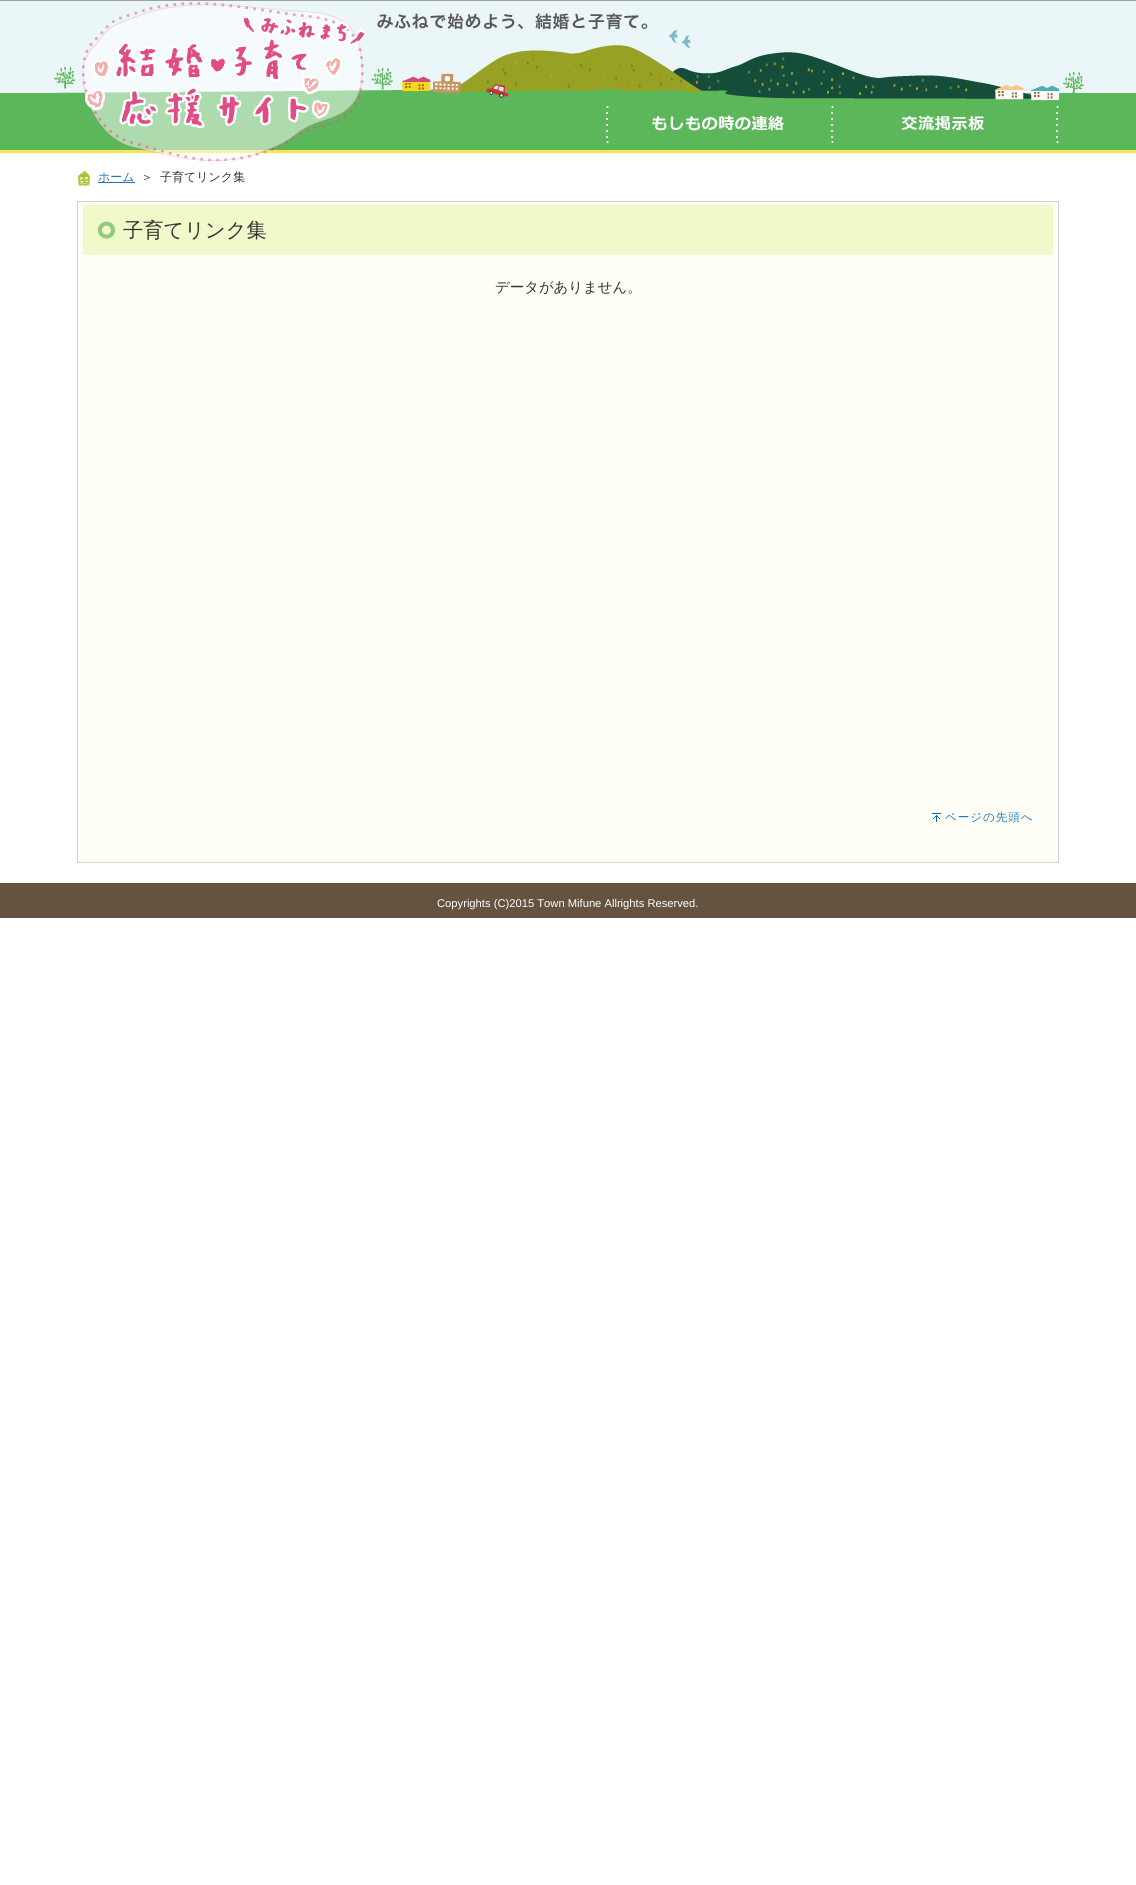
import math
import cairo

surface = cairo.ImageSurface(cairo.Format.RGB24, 1136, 1885)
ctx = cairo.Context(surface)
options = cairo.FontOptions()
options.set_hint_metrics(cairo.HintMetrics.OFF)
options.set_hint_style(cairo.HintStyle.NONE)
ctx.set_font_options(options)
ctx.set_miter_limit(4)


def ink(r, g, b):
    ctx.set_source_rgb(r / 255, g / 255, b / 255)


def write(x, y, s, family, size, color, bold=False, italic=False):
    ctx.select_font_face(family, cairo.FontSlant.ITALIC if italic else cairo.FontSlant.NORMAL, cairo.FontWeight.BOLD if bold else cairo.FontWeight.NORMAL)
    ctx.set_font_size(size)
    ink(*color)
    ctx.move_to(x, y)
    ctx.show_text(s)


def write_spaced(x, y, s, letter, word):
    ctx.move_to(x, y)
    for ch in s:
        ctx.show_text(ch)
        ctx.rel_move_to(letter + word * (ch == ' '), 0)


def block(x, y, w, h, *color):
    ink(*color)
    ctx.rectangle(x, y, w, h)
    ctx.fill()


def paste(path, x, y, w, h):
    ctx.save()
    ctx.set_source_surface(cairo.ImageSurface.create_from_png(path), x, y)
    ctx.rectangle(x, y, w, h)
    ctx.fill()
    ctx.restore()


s1 = dict(family="WenQuanYi Zen Hei Medium", size=12, color=(34, 119, 187))
s2 = dict(family="WenQuanYi Zen Hei Medium", size=12, color=(51, 51, 51))
s3 = dict(family="WenQuanYi Zen Hei Medium", size=20.25, color=(51, 51, 51))
s4 = dict(family="WenQuanYi Zen Hei Medium", size=14.4, color=(51, 51, 51))
s5 = dict(family="Liberation Sans", size=11.2, color=(255, 255, 255))

ink(255, 255, 255)
ctx.paint()
paste("pic1.png", 0, 0, 1136, 153)
paste("pic2.png", 53, 2, 1031, 159)
paste("pic3.png", 78, 171, 12, 15)
block(98, 182, 37, 1, 34, 119, 187)
write(98, 181, "ホーム", **s1)
write(141, 181, "＞", **s2)
write(160, 181, "子育てリンク集", **s2)
ink(255, 255, 248)
ctx.rectangle(77.5, 201.5, 981, 661)
ctx.fill_preserve()
ink(209, 209, 209)
ctx.set_line_width(1)
ctx.stroke()
block(83, 205, 970, 50, 240, 249, 202)
paste("pic4.png", 98, 221, 17, 18)
write(123, 237, "子育てリンク集", **s3)
write(495, 292, "データがありません。", **s4)
paste("pic5.png", 932, 813, 9, 9)
ctx.set_font_size(11.5)
ink(34, 119, 187)
write_spaced(945, 821, "ページの先頭へ", 1, 0)
block(0, 883, 1136, 35, 101, 83, 63)
write(437, 907, "Copyrights (C)2015 Town Mifune Allrights Reserved.", **s5)
surface.write_to_png("screenshot.png")
